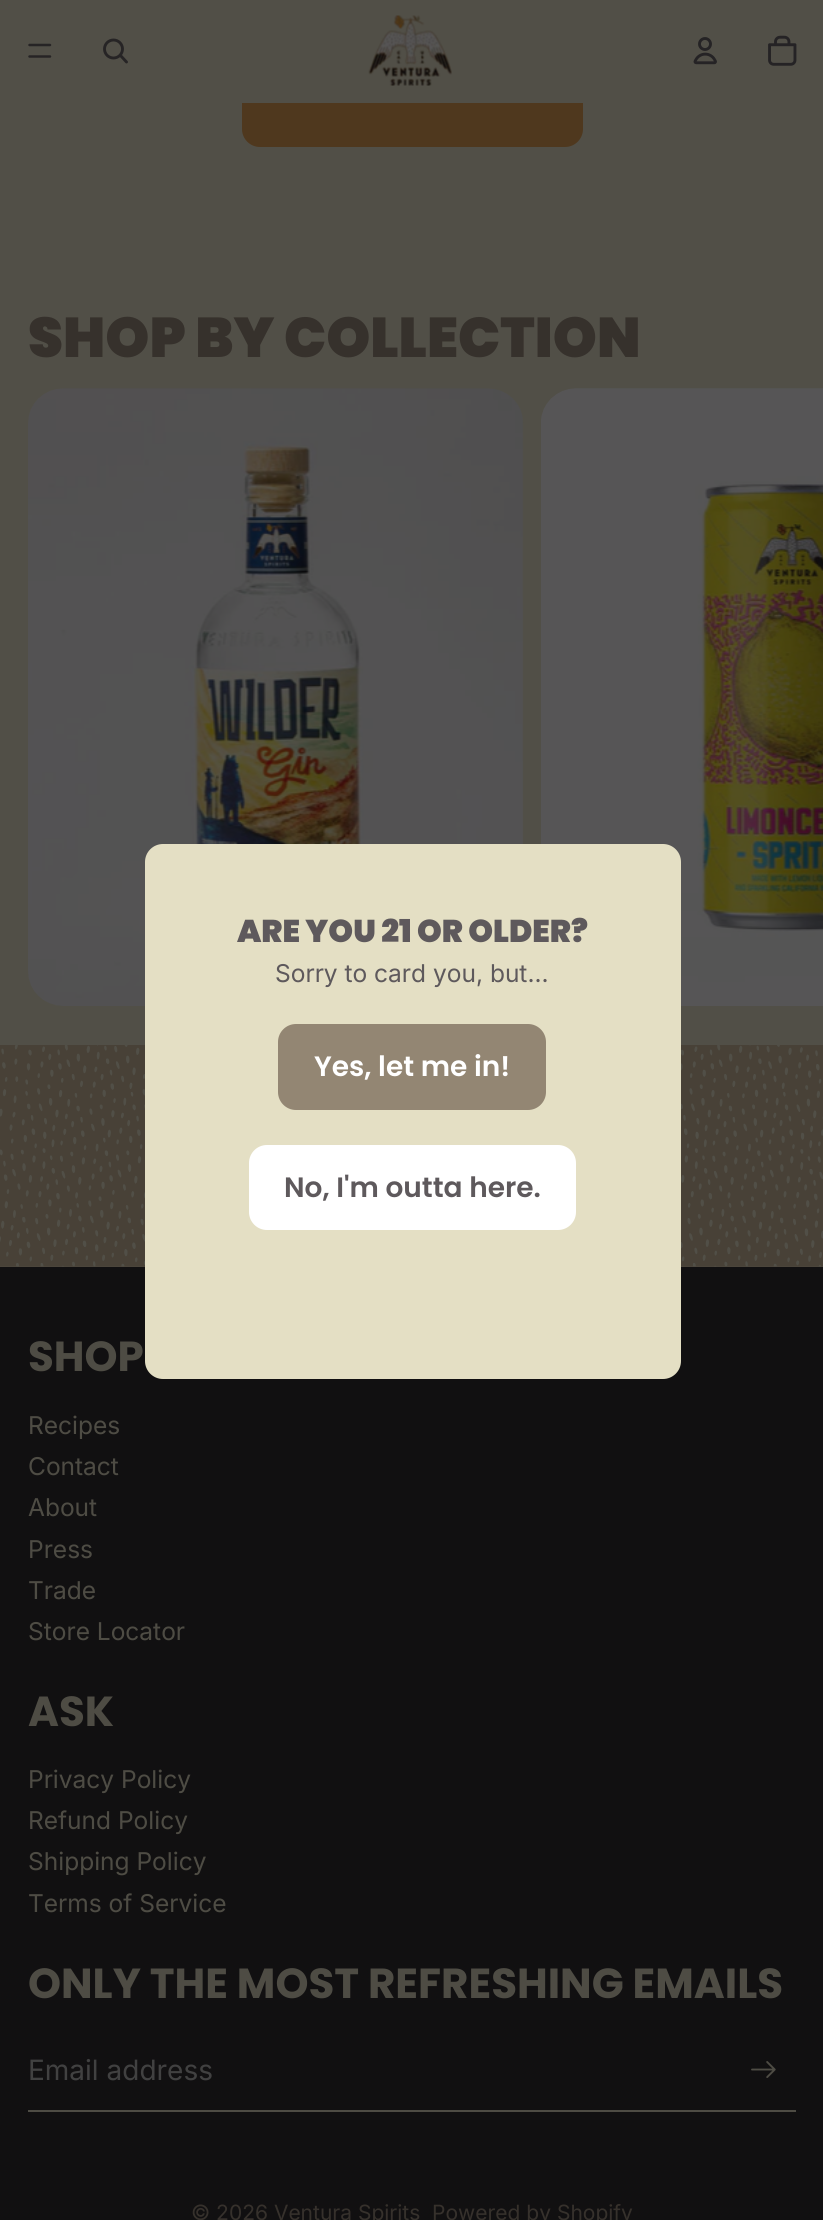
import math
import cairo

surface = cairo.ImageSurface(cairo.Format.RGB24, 823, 2220)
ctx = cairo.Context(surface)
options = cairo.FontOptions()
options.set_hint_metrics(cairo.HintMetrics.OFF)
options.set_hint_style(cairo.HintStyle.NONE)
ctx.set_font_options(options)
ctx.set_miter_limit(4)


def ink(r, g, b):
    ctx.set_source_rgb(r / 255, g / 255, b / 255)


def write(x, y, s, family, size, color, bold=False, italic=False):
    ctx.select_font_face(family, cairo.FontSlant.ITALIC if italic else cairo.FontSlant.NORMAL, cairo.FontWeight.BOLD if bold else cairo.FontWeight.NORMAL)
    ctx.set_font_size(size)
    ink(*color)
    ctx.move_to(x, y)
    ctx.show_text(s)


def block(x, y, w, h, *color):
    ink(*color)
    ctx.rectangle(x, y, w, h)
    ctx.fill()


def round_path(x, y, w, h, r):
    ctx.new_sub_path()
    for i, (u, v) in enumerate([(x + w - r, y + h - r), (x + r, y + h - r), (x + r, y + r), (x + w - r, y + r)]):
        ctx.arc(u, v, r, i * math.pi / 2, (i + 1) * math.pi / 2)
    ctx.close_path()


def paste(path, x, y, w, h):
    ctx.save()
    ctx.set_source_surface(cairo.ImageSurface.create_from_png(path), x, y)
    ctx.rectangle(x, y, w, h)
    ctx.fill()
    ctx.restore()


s1 = dict(family="Poppins Black", size=56, color=(54, 49, 44))
s2 = dict(family="Poppins Black", size=31.5, color=(94, 89, 92))
s3 = dict(family="Inter", size=24.5, color=(94, 89, 92))
s4 = dict(family="Poppins SemiBold", size=28, color=(255, 255, 255))
s5 = dict(family="Poppins SemiBold", size=28, color=(94, 89, 92))
s6 = dict(family="Poppins", size=42, color=(78, 76, 68), bold=True)
s7 = dict(family="Inter", size=24.5, color=(78, 76, 68))
s8 = dict(family="Inter", size=28, color=(65, 65, 65))
s9 = dict(family="Inter", size=21, color=(54, 49, 44))

ink(81, 79, 71)
ctx.paint()
ink(79, 56, 30)
round_path(242, 58, 341, 89, 18)
ctx.fill()
block(242, 58, 341, 45, 81, 79, 71)
ctx.new_path()
ctx.move_to(29.5, 45)
ctx.line_to(50, 45)
ctx.move_to(29.5, 56.5)
ctx.line_to(50, 56.5)
ink(38, 36, 37)
ctx.set_line_width(2.5)
ctx.set_line_cap(cairo.LineCap.ROUND)
ctx.stroke()
ctx.arc(113.5, 49, 9, 0, 2 * math.pi)
ctx.set_line_width(2.9)
ctx.set_line_cap(cairo.LineCap.BUTT)
ctx.stroke()
ctx.new_path()
ctx.move_to(120.5, 55.5)
ctx.line_to(126.5, 62)
ctx.set_line_cap(cairo.LineCap.ROUND)
ctx.set_line_join(cairo.LineJoin.ROUND)
ctx.stroke()
paste("pic1.png", 368, 15, 84, 71)
paste("pic2.png", 693, 37, 24, 28)
paste("pic3.png", 768, 35, 29, 31)
write(28, 357, "SHOP BY COLLECTION", **s1)
paste("pic4.png", 28, 388, 496, 618)
paste("pic5.png", 541, 388, 282, 618)
paste("pic6.png", 0, 1045, 823, 222)
block(0, 1267, 823, 953, 17, 16, 17)
ink(228, 223, 196)
round_path(145, 844, 536, 535, 18)
ctx.fill()
write(237, 942, "ARE YOU 21 OR OLDER?", **s2)
write(275, 982, "Sorry to card you, but...", **s3)
ink(147, 134, 115)
round_path(278, 1024, 268, 86, 18)
ctx.fill()
write(314, 1076, "Yes, let me in!", **s4)
round_path(249, 1145, 327, 85, 18)
ctx.fill()
write(284, 1197, "No, I'm outta here.", **s5)
write(28, 1371, "SHOP", **s6)
write(28, 1434, "Recipes", **s7)
write(28, 1475, "Contact", **s7)
write(28, 1516, "About", **s7)
write(28, 1558, "Press", **s7)
write(28, 1599, "Trade", **s7)
write(28, 1640, "Store Locator", **s7)
write(28, 1726, "ASK", **s6)
write(28, 1788, "Privacy Policy", **s7)
write(28, 1829, "Refund Policy", **s7)
write(28, 1870, "Shipping Policy", **s7)
write(28, 1912, "Terms of Service", **s7)
write(28, 1998, "ONLY THE MOST REFRESHING EMAILS", **s6)
block(28, 2110, 768, 2, 78, 76, 68)
write(28, 2080, "Email address", **s8)
paste("pic7.png", 751, 2061, 25, 17)
write(191, 2220, "© 2026 Ventura Spirits", **s9)
write(432, 2220, "Powered by Shopify", **s9)
surface.write_to_png("screenshot.png")
